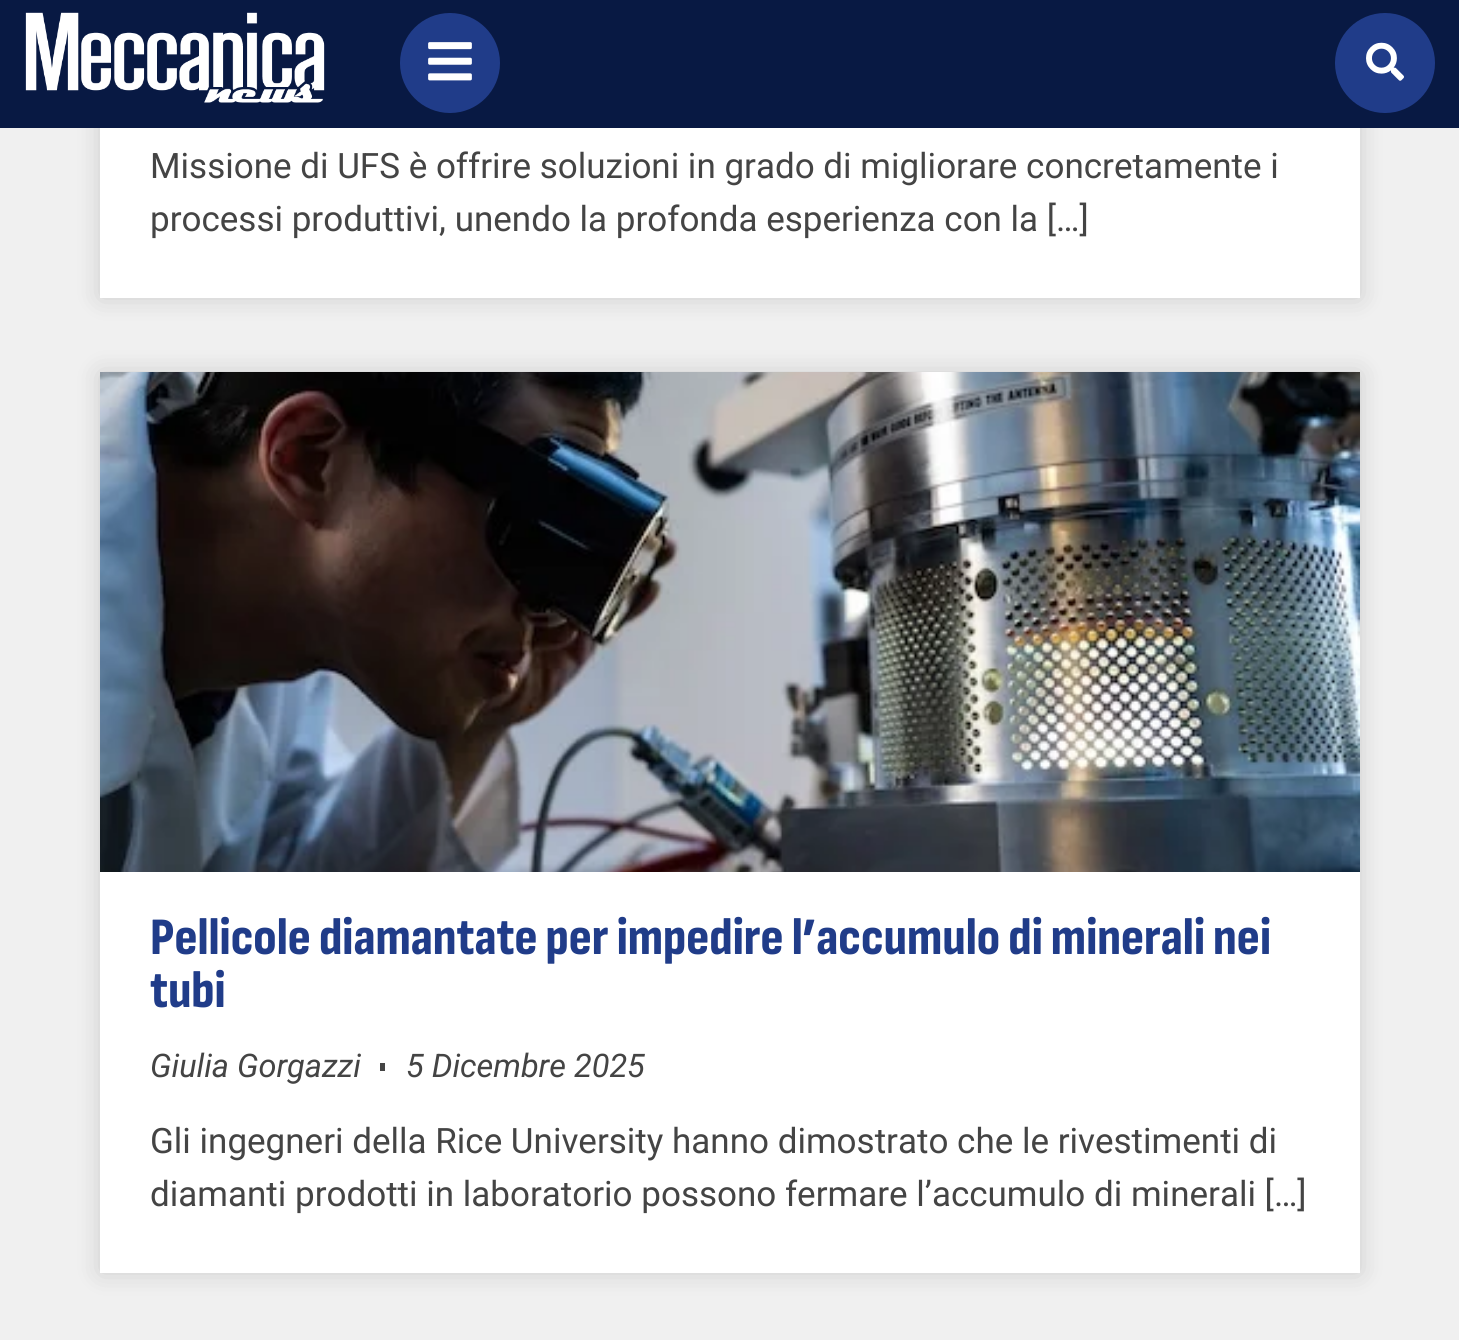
import math
import cairo

surface = cairo.ImageSurface(cairo.Format.RGB24, 1459, 1340)
ctx = cairo.Context(surface)
options = cairo.FontOptions()
options.set_hint_metrics(cairo.HintMetrics.OFF)
options.set_hint_style(cairo.HintStyle.NONE)
ctx.set_font_options(options)
ctx.set_miter_limit(4)


def ink(r, g, b):
    ctx.set_source_rgb(r / 255, g / 255, b / 255)


def write(x, y, s, family, size, color, bold=False, italic=False):
    ctx.select_font_face(family, cairo.FontSlant.ITALIC if italic else cairo.FontSlant.NORMAL, cairo.FontWeight.BOLD if bold else cairo.FontWeight.NORMAL)
    ctx.set_font_size(size)
    ink(*color)
    ctx.move_to(x, y)
    ctx.show_text(s)


def block(x, y, w, h, *color):
    ink(*color)
    ctx.rectangle(x, y, w, h)
    ctx.fill()


def round_path(x, y, w, h, r):
    ctx.new_sub_path()
    for i, (u, v) in enumerate([(x + w - r, y + h - r), (x + r, y + h - r), (x + r, y + r), (x + w - r, y + r)]):
        ctx.arc(u, v, r, i * math.pi / 2, (i + 1) * math.pi / 2)
    ctx.close_path()


def blur_box(x, y, w, h, r, blur, alpha):
    ctx.push_group_with_content(cairo.Content.ALPHA)
    ctx.set_operator(cairo.Operator.SOURCE)
    for i in range(15, -16, -2):
        e = blur * i / 6
        if min(w, h) + 2 * e > 0:
            ctx.set_source_rgba(0, 0, 0, alpha * math.erfc((i - 1) / 8.5) / 2)
            round_path(x - e, y - e, w + 2 * e, h + 2 * e, max(0, min(r + e + blur * .6, min(w, h) / 2 + e)))
            ctx.fill()
    ctx.mask(ctx.pop_group())


def paste(path, x, y, w, h):
    ctx.save()
    ctx.set_source_surface(cairo.ImageSurface.create_from_png(path), x, y)
    ctx.rectangle(x, y, w, h)
    ctx.fill()
    ctx.restore()


s1 = dict(family="Roboto", size=35, color=(68, 68, 68))
s2 = dict(family="Sofia Sans Condensed ExtraBold", size=52.5, color=(32, 60, 137))
s3 = dict(family="Roboto", size=32.5, color=(68, 68, 68), italic=True)

ink(240, 240, 240)
ctx.paint()
ink(0, 0, 0)
blur_box(100, -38, 1260, 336, 0, 12.5, 0.15)
block(0, 0, 1459, 128, 8, 25, 67)
paste("pic1.png", 25, 12, 300, 91)
ink(32, 60, 137)
ctx.arc(450, 63, 50, 0, 2 * math.pi)
ctx.fill()
paste("pic2.png", 428, 42, 44, 39)
ctx.arc(1385, 63, 50, 0, 2 * math.pi)
ctx.fill()
paste("pic3.png", 1366, 42, 38, 39)
block(100, 128, 1260, 170, 255, 255, 255)
write(150, 178, "Missione di UFS è offrire soluzioni in grado di migliorare concretamente i", **s1)
write(150, 231, "processi produttivi, unendo la profonda esperienza con la […]", **s1)
ink(0, 0, 0)
blur_box(100, 373, 1260, 900, 0, 12.5, 0.15)
block(100, 872, 1260, 401, 255, 255, 255)
paste("pic4.png", 100, 372, 1260, 500)
write(150, 954, "Pellicole diamantate per impedire l’accumulo di minerali nei", **s2)
write(150, 1007, "tubi", **s2)
write(150, 1077, "Giulia Gorgazzi", **s3)
block(380, 1063, 5, 8, 68, 68, 68)
write(406, 1077, "5 Dicembre 2025", **s3)
write(150, 1153, "Gli ingegneri della Rice University hanno dimostrato che le rivestimenti di", **s1)
write(150, 1206, "diamanti prodotti in laboratorio possono fermare l’accumulo di minerali […]", **s1)
surface.write_to_png("screenshot.png")
